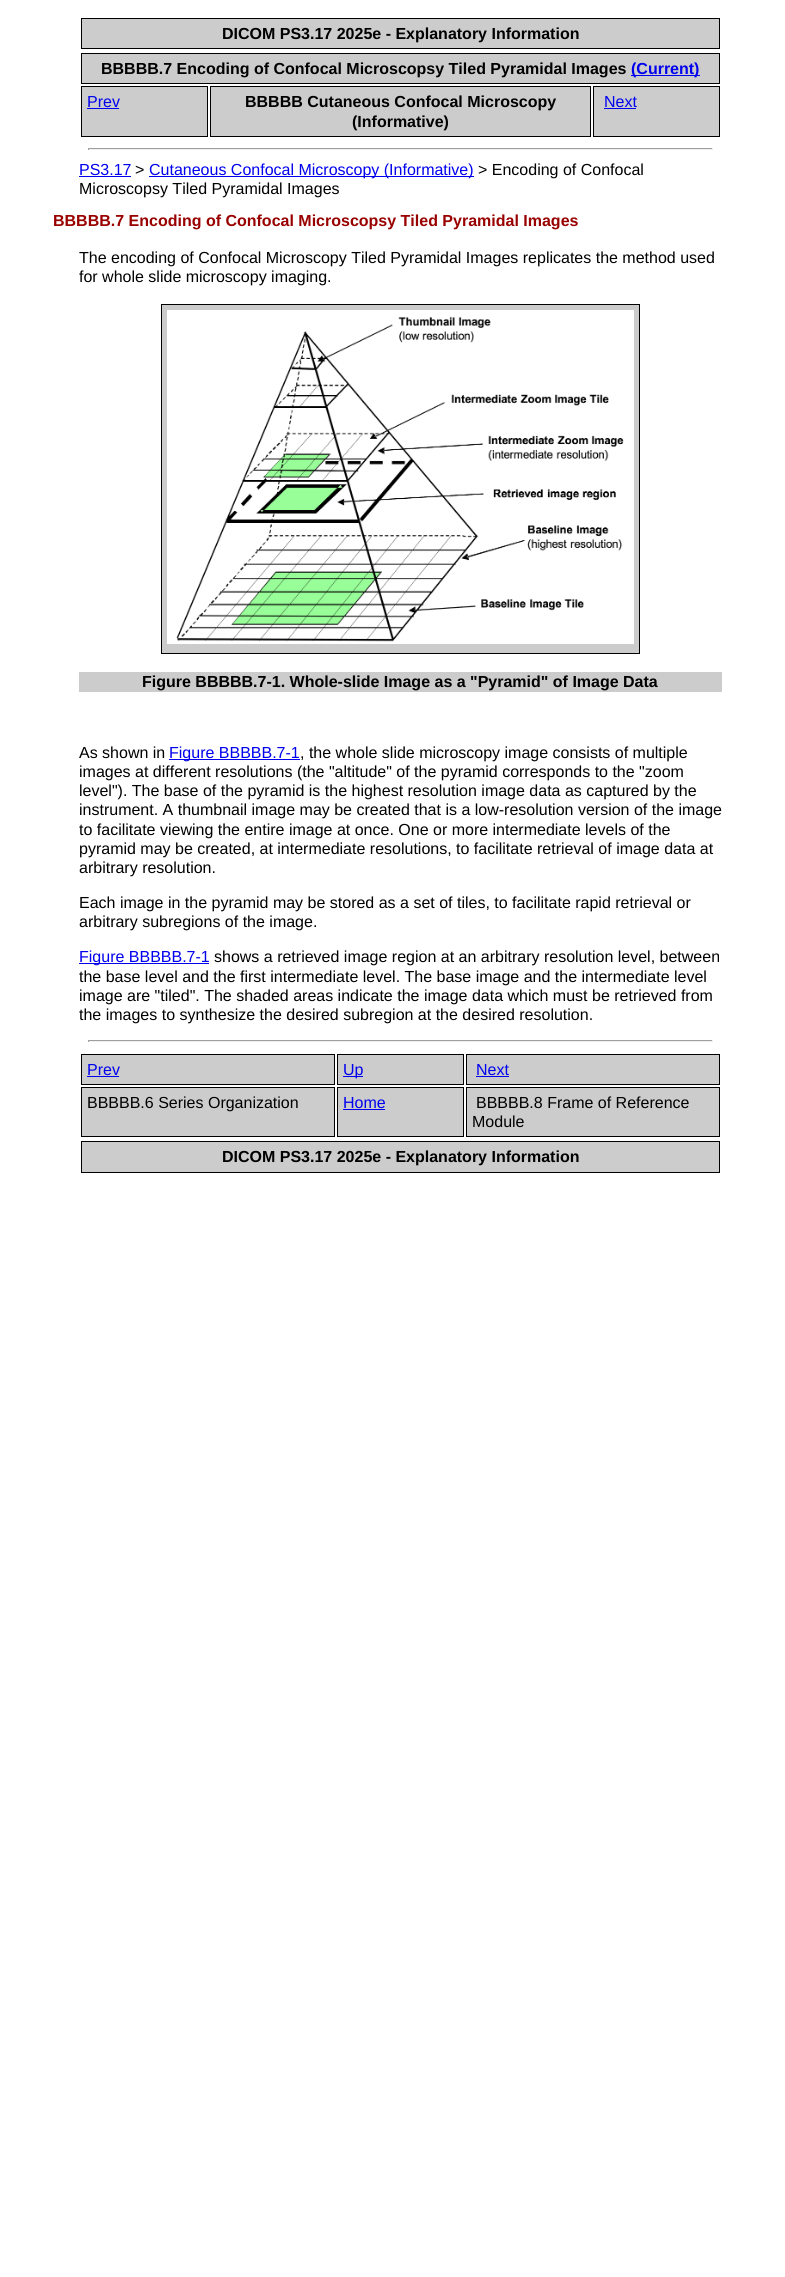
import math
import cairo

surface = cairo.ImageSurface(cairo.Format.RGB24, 785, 2277)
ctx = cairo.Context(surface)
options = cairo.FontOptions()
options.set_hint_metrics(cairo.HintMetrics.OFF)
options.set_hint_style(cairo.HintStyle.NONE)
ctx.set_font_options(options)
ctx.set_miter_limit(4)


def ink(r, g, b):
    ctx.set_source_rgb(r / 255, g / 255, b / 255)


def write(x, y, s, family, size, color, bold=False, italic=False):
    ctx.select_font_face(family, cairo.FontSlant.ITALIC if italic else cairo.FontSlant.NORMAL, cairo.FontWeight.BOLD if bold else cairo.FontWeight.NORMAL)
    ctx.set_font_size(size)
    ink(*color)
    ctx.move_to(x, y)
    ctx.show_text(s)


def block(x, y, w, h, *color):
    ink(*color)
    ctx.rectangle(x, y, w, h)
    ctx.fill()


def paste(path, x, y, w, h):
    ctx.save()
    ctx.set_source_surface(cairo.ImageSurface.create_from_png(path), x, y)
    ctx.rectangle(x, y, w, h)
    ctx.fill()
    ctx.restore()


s1 = dict(family="Liberation Sans", size=16, color=(0, 0, 0), bold=True)
s2 = dict(family="Liberation Sans", size=16, color=(0, 0, 238), bold=True)
s3 = dict(family="Liberation Sans", size=16, color=(0, 0, 238))
s4 = dict(family="Liberation Sans", size=16, color=(0, 0, 0))
s5 = dict(family="Liberation Sans", size=16, color=(153, 0, 0), bold=True)

ink(255, 255, 255)
ctx.paint()
ink(204, 204, 204)
ctx.rectangle(81.5, 18.5, 638, 30)
ctx.fill_preserve()
ink(0, 0, 0)
ctx.set_line_width(1)
ctx.stroke()
write(222, 39, "DICOM PS3.17 2025e - Explanatory Information", **s1)
ink(204, 204, 204)
ctx.rectangle(81.5, 53.5, 638, 30)
ctx.fill_preserve()
ink(0, 0, 0)
ctx.stroke()
write(101, 74, "BBBBB.7 Encoding of Confocal Microscopsy Tiled Pyramidal Images", **s1)
block(631, 75, 69, 1, 0, 0, 238)
write(631, 74, "(Current)", **s2)
ink(204, 204, 204)
ctx.rectangle(81.5, 86.5, 126, 50)
ctx.fill_preserve()
ink(0, 0, 0)
ctx.stroke()
write(87, 107, "Prev", **s3)
block(87, 108, 32, 1, 0, 0, 238)
ink(204, 204, 204)
ctx.rectangle(210.5, 86.5, 380, 50)
ctx.fill_preserve()
ink(0, 0, 0)
ctx.stroke()
write(245, 107, "BBBBB Cutaneous Confocal Microscopy", **s1)
write(352, 127, "(Informative)", **s1)
ink(204, 204, 204)
ctx.rectangle(593.5, 86.5, 126, 50)
ctx.fill_preserve()
ink(0, 0, 0)
ctx.stroke()
write(604, 107, "Next", **s3)
block(604, 108, 32, 1, 0, 0, 238)
block(88, 148, 625, 1, 159, 159, 159)
block(712, 148, 1, 2, 238, 238, 238)
block(88, 149, 625, 1, 238, 238, 238)
block(88, 148, 1, 2, 159, 159, 159)
write(79, 175, "PS3.17", **s3)
block(79, 176, 52, 1, 0, 0, 238)
write(135, 175, ">", **s4)
block(149, 176, 325, 1, 0, 0, 238)
write(149, 175, "Cutaneous Confocal Microscopy (Informative)", **s3)
write(478, 175, "> Encoding of Confocal", **s4)
write(79, 194, "Microscopsy Tiled Pyramidal Images", **s4)
write(53, 226, "BBBBB.7 Encoding of Confocal Microscopsy Tiled Pyramidal Images", **s5)
write(79, 263, "The encoding of Confocal Microscopy Tiled Pyramidal Images replicates the method used", **s4)
write(79, 282, "for whole slide microscopy imaging.", **s4)
ink(204, 204, 204)
ctx.rectangle(161.5, 304.5, 478, 349)
ctx.fill_preserve()
ink(0, 0, 0)
ctx.stroke()
paste("pic1.png", 167, 310, 467, 334)
block(79, 672, 643, 20, 204, 204, 204)
write(142, 687, "Figure BBBBB.7-1. Whole-slide Image as a \"Pyramid\" of Image Data", **s1)
write(79, 758, "As shown in", **s4)
block(169, 759, 131, 1, 0, 0, 238)
write(169, 758, "Figure BBBBB.7-1", **s3)
write(300, 758, ", the whole slide microscopy image consists of multiple", **s4)
write(79, 777, "images at different resolutions (the \"altitude\" of the pyramid corresponds to the \"zoom", **s4)
write(79, 796, "level\"). The base of the pyramid is the highest resolution image data as captured by the", **s4)
write(79, 815, "instrument. A thumbnail image may be created that is a low-resolution version of the image", **s4)
write(79, 835, "to facilitate viewing the entire image at once. One or more intermediate levels of the", **s4)
write(79, 854, "pyramid may be created, at intermediate resolutions, to facilitate retrieval of image data at", **s4)
write(79, 873, "arbitrary resolution.", **s4)
write(79, 908, "Each image in the pyramid may be stored as a set of tiles, to facilitate rapid retrieval or", **s4)
write(79, 927, "arbitrary subregions of the image.", **s4)
block(79, 963, 130, 1, 0, 0, 238)
write(79, 962, "Figure BBBBB.7-1", **s3)
write(214, 962, "shows a retrieved image region at an arbitrary resolution level, between", **s4)
write(79, 982, "the base level and the first intermediate level. The base image and the intermediate level", **s4)
write(79, 1001, "image are \"tiled\". The shaded areas indicate the image data which must be retrieved from", **s4)
write(79, 1020, "the images to synthesize the desired subregion at the desired resolution.", **s4)
block(88, 1040, 625, 1, 159, 159, 159)
block(712, 1040, 1, 2, 238, 238, 238)
block(88, 1041, 625, 1, 238, 238, 238)
block(88, 1040, 1, 2, 159, 159, 159)
ink(204, 204, 204)
ctx.rectangle(81.5, 1054.5, 253, 30)
ctx.fill_preserve()
ink(0, 0, 0)
ctx.stroke()
write(87, 1075, "Prev", **s3)
block(87, 1076, 32, 1, 0, 0, 238)
ink(204, 204, 204)
ctx.rectangle(337.5, 1054.5, 126, 30)
ctx.fill_preserve()
ink(0, 0, 0)
ctx.stroke()
block(343, 1076, 20, 1, 0, 0, 238)
write(343, 1075, "Up", **s3)
ink(204, 204, 204)
ctx.rectangle(466.5, 1054.5, 253, 30)
ctx.fill_preserve()
ink(0, 0, 0)
ctx.stroke()
write(476, 1075, "Next", **s3)
block(476, 1076, 33, 1, 0, 0, 238)
ink(204, 204, 204)
ctx.rectangle(81.5, 1087.5, 253, 49)
ctx.fill_preserve()
ink(0, 0, 0)
ctx.stroke()
write(87, 1108, "BBBBB.6 Series Organization", **s4)
ink(204, 204, 204)
ctx.rectangle(337.5, 1087.5, 126, 49)
ctx.fill_preserve()
ink(0, 0, 0)
ctx.stroke()
write(343, 1108, "Home", **s3)
block(343, 1109, 42, 1, 0, 0, 238)
ink(204, 204, 204)
ctx.rectangle(466.5, 1087.5, 253, 49)
ctx.fill_preserve()
ink(0, 0, 0)
ctx.stroke()
write(476, 1108, "BBBBB.8 Frame of Reference", **s4)
write(472, 1127, "Module", **s4)
ink(204, 204, 204)
ctx.rectangle(81.5, 1141.5, 638, 31)
ctx.fill_preserve()
ink(0, 0, 0)
ctx.stroke()
write(222, 1162, "DICOM PS3.17 2025e - Explanatory Information", **s1)
surface.write_to_png("screenshot.png")
